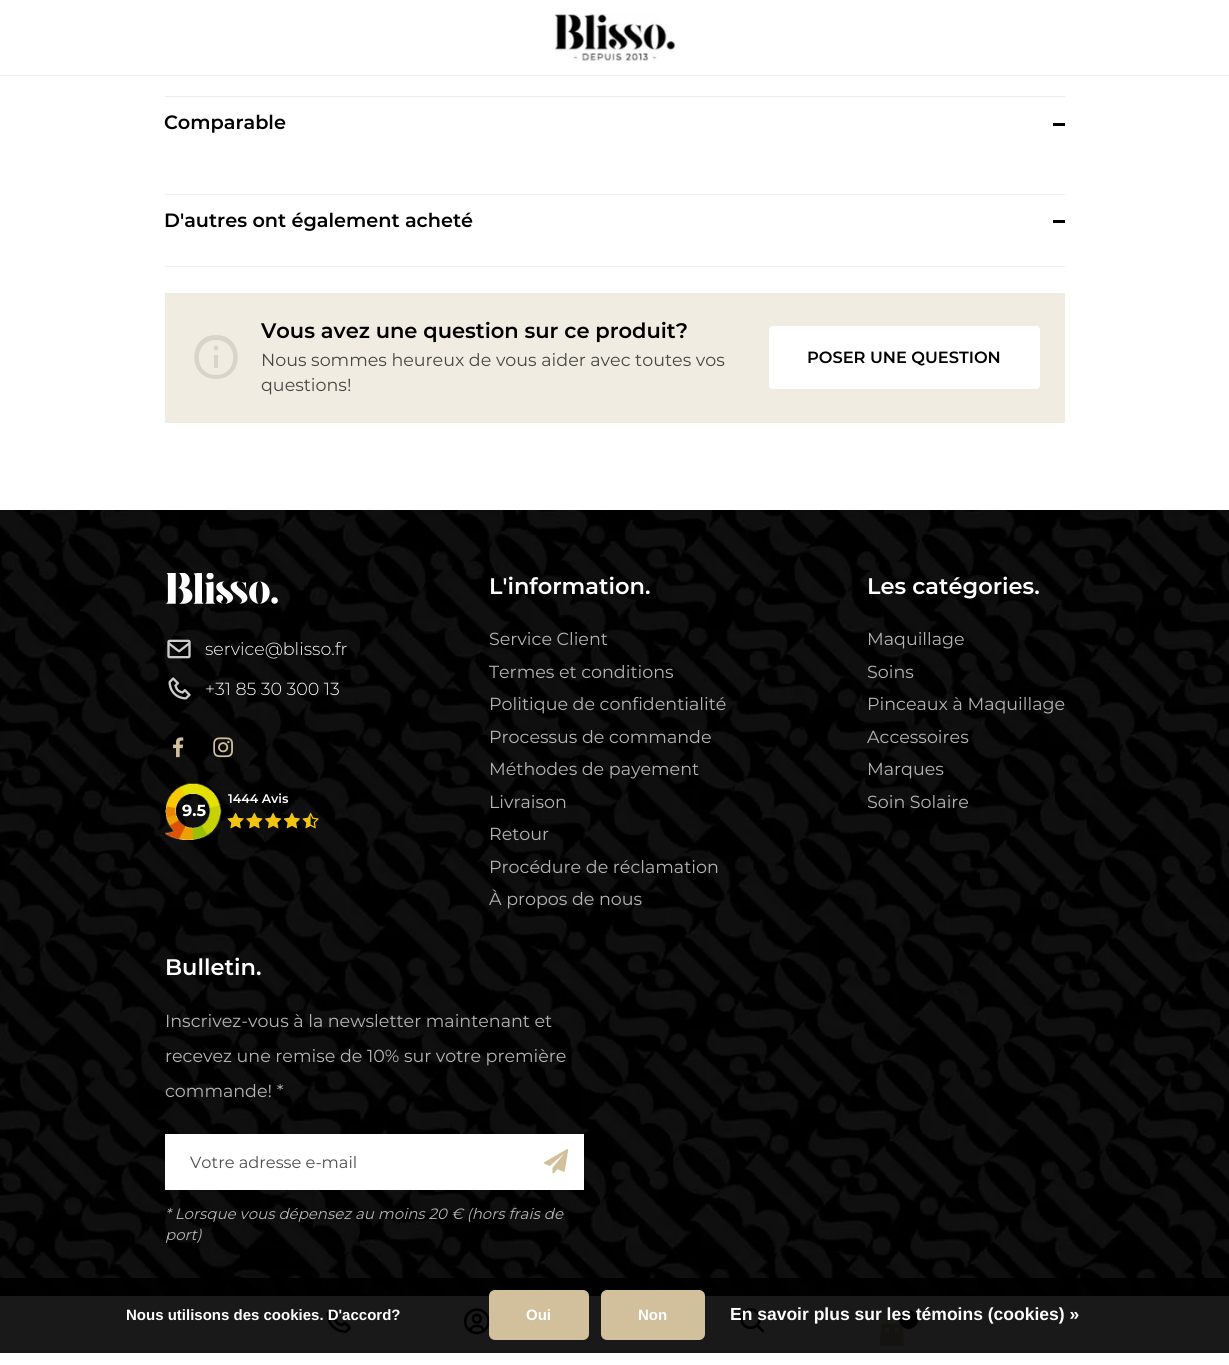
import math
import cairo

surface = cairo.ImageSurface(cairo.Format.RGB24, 1229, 1365)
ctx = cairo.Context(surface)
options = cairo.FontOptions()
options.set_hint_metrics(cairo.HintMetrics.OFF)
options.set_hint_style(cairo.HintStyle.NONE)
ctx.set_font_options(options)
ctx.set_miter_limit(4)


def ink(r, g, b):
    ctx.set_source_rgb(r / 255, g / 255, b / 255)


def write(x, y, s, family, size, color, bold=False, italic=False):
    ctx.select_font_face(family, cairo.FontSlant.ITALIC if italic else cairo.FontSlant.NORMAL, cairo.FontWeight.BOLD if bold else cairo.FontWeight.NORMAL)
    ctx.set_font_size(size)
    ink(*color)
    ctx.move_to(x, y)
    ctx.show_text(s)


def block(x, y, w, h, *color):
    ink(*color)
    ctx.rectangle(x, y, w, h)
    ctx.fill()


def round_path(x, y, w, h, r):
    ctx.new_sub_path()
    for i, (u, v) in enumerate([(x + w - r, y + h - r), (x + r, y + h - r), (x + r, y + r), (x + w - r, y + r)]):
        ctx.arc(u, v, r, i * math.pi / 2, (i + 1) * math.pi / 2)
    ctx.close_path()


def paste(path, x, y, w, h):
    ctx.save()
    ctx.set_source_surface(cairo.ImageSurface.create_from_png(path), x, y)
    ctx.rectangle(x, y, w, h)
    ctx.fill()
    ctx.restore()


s1 = dict(family="Montserrat SemiBold", size=19.25, color=(0, 0, 0))
s2 = dict(family="Montserrat SemiBold", size=21, color=(0, 0, 0))
s3 = dict(family="Montserrat", size=17.5, color=(72, 71, 68))
s4 = dict(family="Montserrat SemiBold", size=16.25, color=(0, 0, 0))
s5 = dict(family="Montserrat Light", size=17.5, color=(255, 255, 255))
s6 = dict(family="Montserrat SemiBold", size=12.5, color=(255, 255, 255))
s7 = dict(family="Montserrat", size=16, color=(255, 255, 255), bold=True)
s8 = dict(family="Montserrat SemiBold", size=22.5, color=(255, 255, 255))
s9 = dict(family="Montserrat", size=17.5, color=(180, 180, 180))
s10 = dict(family="Montserrat", size=16.25, color=(77, 77, 77))
s11 = dict(family="Montserrat", size=15, color=(180, 180, 180), italic=True)
s12 = dict(family="Liberation Sans", size=15, color=(255, 255, 255), bold=True)
s13 = dict(family="Liberation Sans", size=17.5, color=(255, 255, 255), bold=True)

ink(255, 255, 255)
ctx.paint()
block(0, 75, 1229, 1, 238, 238, 238)
paste("pic1.png", 554, 14, 122, 47)
block(165, 96, 900, 1, 238, 238, 238)
block(165, 194, 900, 1, 238, 238, 238)
write(164, 129, "Comparable", **s1)
block(1053, 123, 12, 3, 0, 0, 0)
block(165, 266, 900, 1, 238, 238, 238)
write(164, 227, "D'autres ont également acheté", **s1)
block(1053, 220, 12, 3, 0, 0, 0)
block(165, 293, 900, 130, 241, 236, 225)
ink(217, 212, 203)
ctx.new_path()
ctx.move_to(216, 335)
ctx.curve_to(187, 335, 187, 379, 216, 379)
ctx.curve_to(245, 379, 245, 335, 216, 335)
ctx.close_path()
ctx.move_to(216, 375)
ctx.curve_to(193, 375, 193, 340, 216, 340)
ctx.curve_to(239, 340, 239, 375, 216, 375)
ctx.close_path()
ctx.move_to(214, 355)
ctx.line_to(218, 355)
ctx.line_to(218, 368)
ctx.line_to(214, 368)
ctx.close_path()
ctx.move_to(214, 346)
ctx.line_to(218, 346)
ctx.line_to(218, 350)
ctx.line_to(214, 350)
ctx.close_path()
ctx.fill()
write(261, 338, "Vous avez une question sur ce produit?", **s2)
write(261, 366, "Nous sommes heureux de vous aider avec toutes vos", **s3)
write(261, 391, "questions!", **s3)
ink(255, 255, 255)
round_path(769, 326, 271, 63, 4)
ctx.fill()
write(807, 363, "POSER UNE QUESTION", **s4)
paste("pic2.png", 0, 510, 1229, 786)
paste("pic3.png", 165, 573, 113, 31)
paste("pic4.png", 167, 639, 24, 20)
write(205, 655, "service@blisso.fr", **s5)
paste("pic5.png", 168, 677, 23, 23)
write(205, 695, "+31 85 30 300 13", **s5)
paste("pic6.png", 173, 737, 11, 21)
paste("pic7.png", 213, 737, 20, 21)
write(228, 803, "1444 Avis", **s6)
paste("pic8.png", 227, 812, 17, 17)
paste("pic9.png", 246, 812, 17, 17)
paste("pic10.png", 265, 812, 17, 17)
paste("pic11.png", 283, 812, 17, 17)
paste("pic12.png", 302, 812, 17, 17)
paste("pic13.png", 165, 783, 57, 57)
write(182, 816, "9.5", **s7)
write(489, 594, "L'information.", **s8)
write(489, 645, "Service Client", **s9)
write(489, 678, "Termes et conditions", **s9)
write(489, 710, "Politique de confidentialité", **s9)
write(489, 743, "Processus de commande", **s9)
write(489, 775, "Méthodes de payement", **s9)
write(489, 808, "Livraison", **s9)
write(489, 840, "Retour", **s9)
write(489, 873, "Procédure de réclamation", **s9)
write(489, 905, "À propos de nous", **s9)
write(867, 594, "Les catégories.", **s8)
write(867, 645, "Maquillage", **s9)
write(867, 678, "Soins", **s9)
write(867, 710, "Pinceaux à Maquillage", **s9)
write(867, 743, "Accessoires", **s9)
write(867, 775, "Marques", **s9)
write(867, 808, "Soin Solaire", **s9)
write(165, 975, "Bulletin.", **s8)
write(165, 1027, "Inscrivez-vous à la newsletter maintenant et", **s9)
write(165, 1062, "recevez une remise de 10% sur votre première", **s9)
write(165, 1097, "commande! *", **s9)
block(165, 1134, 419, 56, 255, 255, 255)
write(190, 1168, "Votre adresse e-mail", **s10)
paste("pic14.png", 543, 1149, 26, 25)
write(165, 1219, "* Lorsque vous dépensez au moins 20 € (hors frais de", **s11)
write(165, 1240, "port)", **s11)
paste("pic15.png", 326, 1308, 26, 25)
paste("pic16.png", 463, 1308, 26, 27)
paste("pic17.png", 740, 1308, 25, 25)
paste("pic18.png", 879, 1314, 25, 32)
ink(0, 0, 0)
ctx.arc(908.5, 1319.5, 9.5, 0, 2 * math.pi)
ctx.fill()
ctx.set_source_rgba(0, 0, 0, 0.9)
ctx.rectangle(0, 1278, 1229, 75)
ctx.fill()
write(126, 1320, "Nous utilisons des cookies. D'accord?", **s12)
ink(209, 192, 155)
round_path(489, 1290, 100, 50, 6)
ctx.fill()
write(526, 1320, "Oui", **s12)
ink(209, 192, 155)
round_path(601, 1290, 104, 50, 6)
ctx.fill()
write(638, 1320, "Non", **s12)
write(730, 1320, "En savoir plus sur les témoins (cookies) »", **s13)
surface.write_to_png("screenshot.png")
